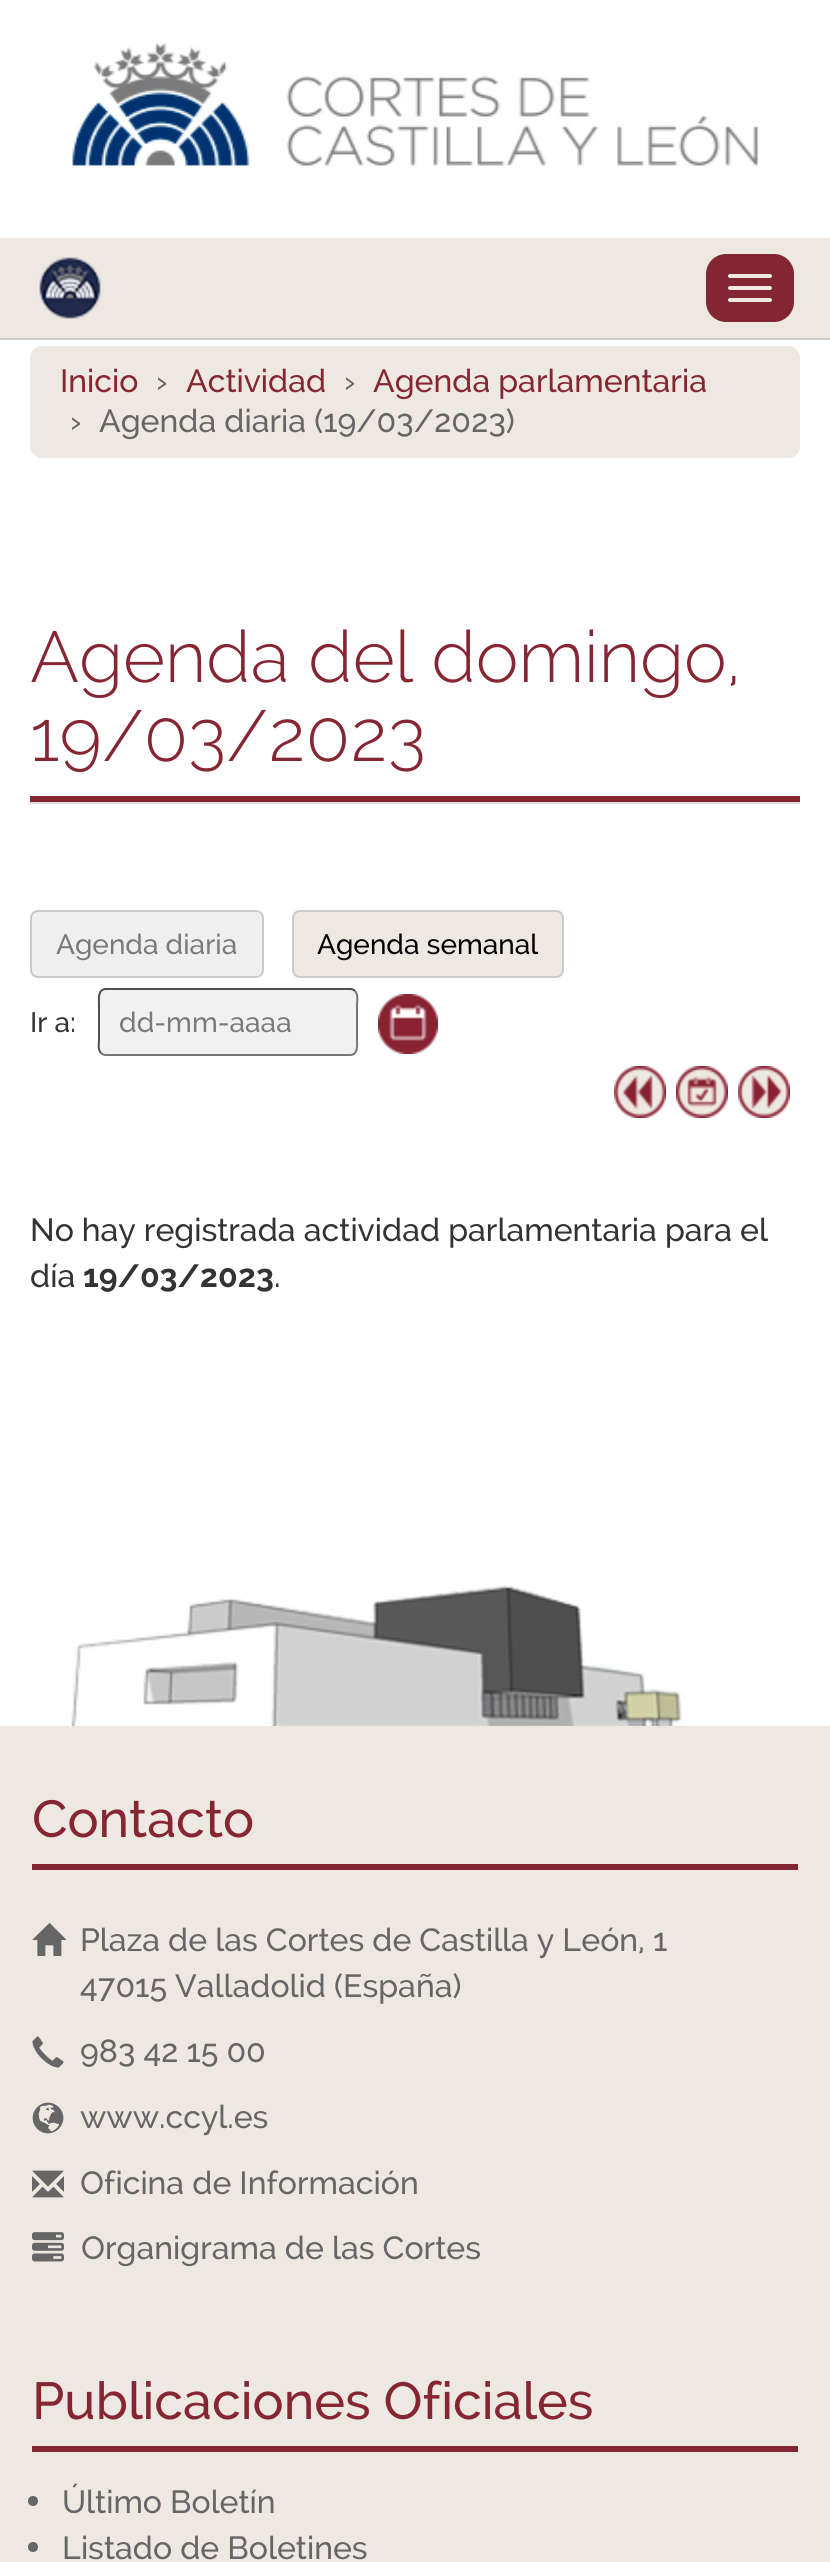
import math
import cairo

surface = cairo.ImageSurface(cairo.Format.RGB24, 830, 2562)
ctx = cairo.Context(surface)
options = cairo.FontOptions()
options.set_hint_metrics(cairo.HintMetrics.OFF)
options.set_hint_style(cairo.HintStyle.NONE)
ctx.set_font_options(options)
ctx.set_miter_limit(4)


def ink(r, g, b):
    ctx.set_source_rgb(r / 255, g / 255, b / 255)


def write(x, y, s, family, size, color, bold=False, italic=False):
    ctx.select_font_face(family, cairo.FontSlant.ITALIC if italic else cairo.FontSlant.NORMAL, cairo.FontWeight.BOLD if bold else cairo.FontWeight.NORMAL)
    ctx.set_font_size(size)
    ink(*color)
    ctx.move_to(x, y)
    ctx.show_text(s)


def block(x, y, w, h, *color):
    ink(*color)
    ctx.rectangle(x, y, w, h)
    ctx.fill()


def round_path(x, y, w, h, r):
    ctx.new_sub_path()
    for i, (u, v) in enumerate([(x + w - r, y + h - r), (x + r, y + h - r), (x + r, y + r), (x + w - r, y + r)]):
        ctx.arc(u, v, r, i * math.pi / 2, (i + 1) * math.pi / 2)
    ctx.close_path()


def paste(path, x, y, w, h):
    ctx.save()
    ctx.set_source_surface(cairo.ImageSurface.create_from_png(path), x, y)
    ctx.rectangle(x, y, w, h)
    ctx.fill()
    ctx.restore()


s1 = dict(family="Raleway Medium", size=32, color=(134, 38, 51))
s2 = dict(family="Raleway Medium", size=32, color=(102, 102, 102))
s3 = dict(family="Raleway Light", size=72, color=(134, 38, 51))
s4 = dict(family="Raleway Medium", size=28, color=(122, 122, 122))
s5 = dict(family="Raleway Medium", size=28, color=(0, 0, 0))
s6 = dict(family="Raleway Medium", size=28, color=(51, 51, 51))
s7 = dict(family="Raleway Medium", size=32, color=(51, 51, 51))
s8 = dict(family="Raleway", size=32, color=(51, 51, 51), bold=True)
s9 = dict(family="Raleway Medium", size=52, color=(134, 38, 51))

ink(255, 255, 255)
ctx.paint()
block(0, 338, 830, 2, 204, 204, 204)
paste("pic1.png", 72, 43, 687, 124)
block(0, 238, 830, 100, 237, 233, 226)
paste("pic2.png", 39, 257, 62, 62)
ink(131, 38, 51)
round_path(706, 254, 88, 68, 20)
ctx.fill()
ink(237, 233, 226)
round_path(728, 274, 44, 4, 2)
ctx.fill()
round_path(728, 286, 44, 4, 2)
ctx.fill()
round_path(728, 298, 44, 4, 2)
ctx.fill()
round_path(30, 346, 770, 112, 12)
ctx.fill()
write(60, 392, "Inicio", **s1)
write(156, 392, "›", **s2)
write(186, 392, "Actividad", **s1)
write(344, 392, "›", **s2)
write(373, 392, "Agenda parlamentaria", **s1)
write(70, 432, "›", **s2)
write(99, 432, "Agenda diaria (19/03/2023)", **s2)
block(30, 802, 770, 2, 221, 221, 221)
block(30, 796, 770, 6, 134, 38, 51)
write(30, 682, "Agenda del domingo,", **s3)
write(30, 761, "19/03/2023", **s3)
ink(239, 239, 239)
round_path(31, 911, 232, 66, 7)
ctx.fill_preserve()
ink(202, 202, 202)
ctx.stroke()
write(56, 954, "Agenda diaria", **s4)
ink(237, 233, 226)
round_path(293, 911, 270, 66, 7)
ctx.fill_preserve()
ink(204, 204, 204)
ctx.stroke()
write(317, 954, "Agenda semanal", **s5)
write(30, 1032, "Ir a:", **s6)
ink(241, 241, 241)
round_path(98, 988, 260, 68, 8)
ctx.fill()
ctx.new_path()
ctx.move_to(355, 991)
ctx.curve_to(358.5, 994.5, 357, 1001, 357, 1004.5)
ctx.line_to(357, 1039.5)
ctx.curve_to(357, 1044.5, 358.5, 1055, 350, 1055)
ctx.line_to(106, 1055)
ctx.curve_to(104, 1055, 102.5, 1054.5, 101, 1053)
ink(118, 118, 118)
ctx.stroke()
ctx.new_path()
ctx.move_to(101, 1053)
ctx.curve_to(97.5, 1049.5, 99, 1043, 99, 1039.5)
ctx.line_to(99, 1004.5)
ctx.curve_to(99, 999.5, 97.5, 989, 106, 989)
ctx.line_to(350, 989)
ctx.curve_to(352, 989, 353.5, 989.5, 355, 991)
ink(79, 79, 79)
ctx.stroke()
write(119, 1032, "dd-mm-aaaa", **s4)
paste("pic3.png", 378, 994, 60, 60)
paste("pic4.png", 614, 1066, 52, 52)
paste("pic5.png", 676, 1066, 52, 52)
paste("pic6.png", 738, 1066, 52, 52)
write(30, 1241, "No hay registrada actividad parlamentaria para el", **s7)
write(30, 1287, "día", **s7)
write(83, 1287, "19/03/2023", **s8)
write(274, 1287, ".", **s7)
paste("pic7.png", 71, 1585, 615, 141)
block(0, 1726, 830, 836, 237, 233, 226)
block(32, 1864, 766, 6, 131, 38, 51)
write(32, 1837, "Contacto", **s9)
paste("pic8.png", 32, 1923, 35, 33)
write(80, 1951, "Plaza de las Cortes de Castilla y León, 1", **s2)
write(80, 1997, "47015 Valladolid (España)", **s2)
paste("pic9.png", 32, 2036, 32, 32)
write(80, 2062, "983 42 15 00", **s2)
paste("pic10.png", 32, 2102, 32, 32)
write(80, 2128, "www.ccyl.es", **s2)
paste("pic11.png", 32, 2170, 32, 28)
write(80, 2194, "Oficina de Información", **s2)
paste("pic12.png", 32, 2232, 32, 30)
write(81, 2259, "Organigrama de las Cortes", **s2)
block(32, 2446, 766, 6, 131, 38, 51)
write(32, 2419, "Publicaciones Oficiales", **s9)
ink(102, 102, 102)
ctx.new_path()
ctx.arc(33, 2501, 5, 0, 2 * math.pi)
ctx.fill()
write(62, 2513, "Último Boletín", **s2)
ctx.new_path()
ctx.arc(33, 2547, 5, 0, 2 * math.pi)
ctx.fill()
write(62, 2559, "Listado de Boletines", **s2)
surface.write_to_png("screenshot.png")
